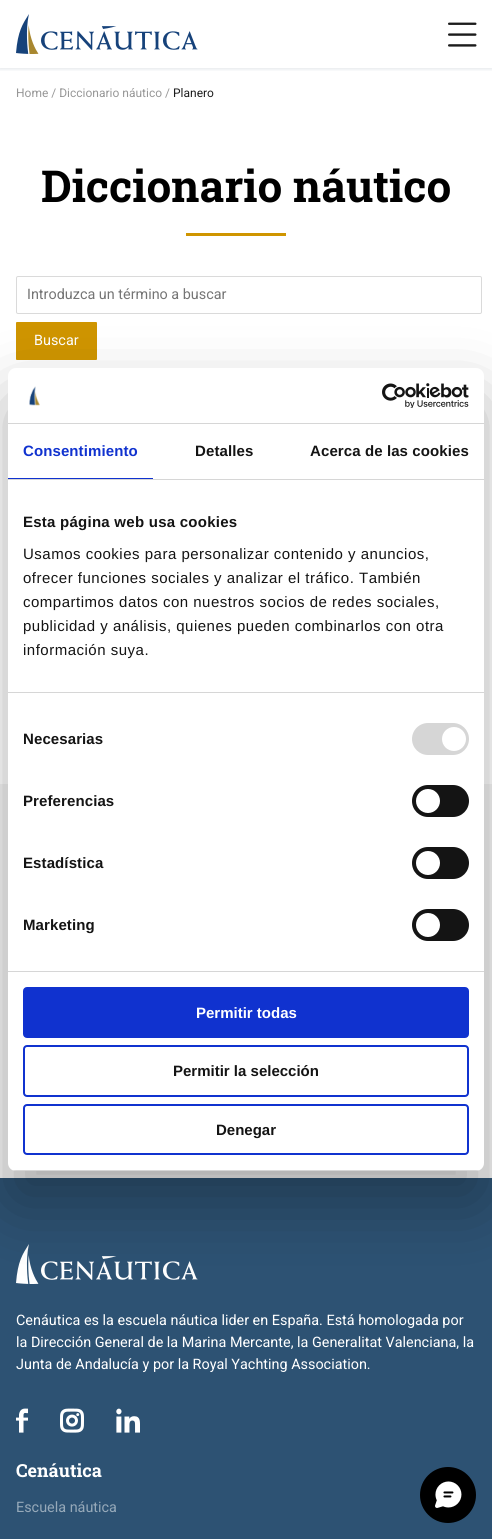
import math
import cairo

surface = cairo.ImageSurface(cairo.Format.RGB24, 492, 1539)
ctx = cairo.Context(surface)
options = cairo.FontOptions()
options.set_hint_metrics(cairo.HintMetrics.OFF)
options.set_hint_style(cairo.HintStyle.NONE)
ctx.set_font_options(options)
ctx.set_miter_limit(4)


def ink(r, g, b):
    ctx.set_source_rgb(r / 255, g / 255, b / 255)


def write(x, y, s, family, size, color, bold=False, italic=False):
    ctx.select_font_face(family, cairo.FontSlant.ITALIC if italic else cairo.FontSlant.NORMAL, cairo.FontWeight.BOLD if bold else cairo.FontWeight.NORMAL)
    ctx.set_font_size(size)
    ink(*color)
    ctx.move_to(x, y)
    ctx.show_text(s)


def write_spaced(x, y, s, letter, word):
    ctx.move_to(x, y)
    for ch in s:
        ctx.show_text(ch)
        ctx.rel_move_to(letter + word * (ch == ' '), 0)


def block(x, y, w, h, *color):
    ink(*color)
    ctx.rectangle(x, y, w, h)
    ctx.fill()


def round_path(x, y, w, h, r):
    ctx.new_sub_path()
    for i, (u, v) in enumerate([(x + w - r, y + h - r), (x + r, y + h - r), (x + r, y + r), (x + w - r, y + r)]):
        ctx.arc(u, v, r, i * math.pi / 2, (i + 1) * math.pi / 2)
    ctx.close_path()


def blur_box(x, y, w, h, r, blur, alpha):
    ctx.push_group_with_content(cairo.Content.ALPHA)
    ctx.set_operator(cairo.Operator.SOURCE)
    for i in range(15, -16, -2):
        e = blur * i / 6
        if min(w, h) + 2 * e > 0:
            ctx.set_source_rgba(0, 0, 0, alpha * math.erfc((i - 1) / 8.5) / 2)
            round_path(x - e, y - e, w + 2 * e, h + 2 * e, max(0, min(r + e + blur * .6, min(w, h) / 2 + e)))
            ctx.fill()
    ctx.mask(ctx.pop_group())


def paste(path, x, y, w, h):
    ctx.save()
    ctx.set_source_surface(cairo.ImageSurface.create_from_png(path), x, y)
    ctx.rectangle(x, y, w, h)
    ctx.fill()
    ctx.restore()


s1 = dict(family="Roboto", size=12, color=(151, 151, 151))
s2 = dict(family="Roboto", size=12, color=(28, 28, 28))
s3 = dict(family="Roboto Slab", size=44, color=(0, 0, 0), bold=True)
s4 = dict(family="Roboto", size=14.4, color=(117, 117, 117))
s5 = dict(family="Roboto", size=14.4, color=(255, 255, 255))
s6 = dict(family="Liberation Sans", size=15, color=(255, 255, 255), bold=True)
s7 = dict(family="Liberation Sans", size=15, color=(20, 20, 20), bold=True)
s8 = dict(family="Roboto Slab", size=18, color=(255, 255, 255), bold=True)
s9 = dict(family="Roboto", size=14.4, color=(150, 169, 185))

ink(255, 255, 255)
ctx.paint()
ctx.save()
ctx.rectangle(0, 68, 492, 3)
ctx.clip()
ink(41, 70, 97)
blur_box(0, 1, 492, 68, 0, 2, 0.15)
ctx.restore()
paste("pic1.png", 16, 14, 182, 40)
paste("pic2.png", 448, 22, 29, 25)
write(16, 97, "Home / Diccionario náutico /", **s1)
write(173, 97, "Planero", **s2)
write(41, 202, "Diccionario náutico", **s3)
block(186, 233, 100, 3, 207, 149, 0)
round_path(16.5, 276.5, 465, 37, 1.5)
ink(218, 218, 218)
ctx.set_line_width(1)
ctx.stroke()
write(27, 299, "Introduzca un término a buscar", **s4)
ink(207, 149, 0)
round_path(16, 322, 81, 38, 1)
ctx.fill()
write(34, 345, "Buscar", **s5)
block(0, 784, 492, 394, 243, 243, 243)
block(0, 1178, 492, 361, 45, 82, 115)
paste("pic5.png", 16, 1244, 182, 40)
ink(0, 0, 0)
blur_box(8, 400, 476, 803, 8, 34, 0.3)
ink(255, 255, 255)
round_path(8, 368, 476, 803, 8)
ctx.fill()
block(8, 423, 476, 1, 214, 214, 214)
paste("pic3.png", 29, 386, 11, 20)
paste("pic4.png", 382, 383, 87, 25)
block(8, 479, 476, 1, 214, 214, 214)
block(8, 478, 145, 1, 16, 50, 207)
ctx.select_font_face("Liberation Sans", cairo.FontSlant.NORMAL, cairo.FontWeight.BOLD)
ctx.set_font_size(15)
write_spaced(23, 456, "Consentimiento", 0.1, 0)
ink(20, 20, 20)
write_spaced(195, 456, "Detalles", 0.1, 0)
write_spaced(310, 456, "Acerca de las cookies", 0.1, 0)
block(8, 692, 476, 1, 214, 214, 214)
ink(20, 20, 20)
write_spaced(23, 527, "Esta página web usa cookies", 0.25, 0)
ctx.select_font_face("Liberation Sans")
write_spaced(23, 559, "Usamos cookies para personalizar contenido y anuncios,", 0.5, 0)
write_spaced(23, 583, "ofrecer funciones sociales y analizar el tráfico. También", 0.5, 0)
write_spaced(23, 607, "compartimos datos con nuestros socios de redes sociales,", 0.5, 0)
write_spaced(23, 631, "publicidad y análisis, quienes pueden combinarlos con otra", 0.5, 0)
write_spaced(23, 655, "información suya.", 0.5, 0)
block(8, 971, 476, 1, 214, 214, 214)
ctx.select_font_face("Liberation Sans", cairo.FontSlant.NORMAL, cairo.FontWeight.BOLD)
ink(20, 20, 20)
write_spaced(23, 744, "Necesarias", 0.1, 0)
ink(214, 214, 214)
round_path(412, 723, 57, 32, 16)
ctx.fill()
ink(255, 255, 255)
ctx.arc(454, 739, 12, 0, 2 * math.pi)
ctx.fill()
ink(20, 20, 20)
write_spaced(23, 806, "Preferencias", 0.1, 0)
round_path(412, 785, 57, 32, 16)
ctx.fill()
ink(255, 255, 255)
ctx.arc(428, 801, 12, 0, 2 * math.pi)
ctx.fill()
ink(20, 20, 20)
write_spaced(23, 868, "Estadística", 0.1, 0)
round_path(412, 847, 57, 32, 16)
ctx.fill()
ink(255, 255, 255)
ctx.arc(428, 863, 12, 0, 2 * math.pi)
ctx.fill()
ink(20, 20, 20)
write_spaced(23, 930, "Marketing", 0.1, 0)
round_path(412, 909, 57, 32, 16)
ctx.fill()
ink(255, 255, 255)
ctx.arc(428, 925, 12, 0, 2 * math.pi)
ctx.fill()
ctx.save()
round_path(8, 368, 476, 803, 8)
ctx.clip()
block(8, 1170, 476, 1, 214, 214, 214)
ctx.restore()
ink(16, 50, 207)
round_path(24, 988, 444, 49, 3)
ctx.fill_preserve()
ctx.set_line_width(2)
ctx.stroke()
write(196, 1018, "Permitir todas", **s6)
round_path(24, 1046, 444, 50, 3)
ink(16, 50, 207)
ctx.stroke()
write(173, 1076, "Permitir la selección", **s7)
round_path(24, 1105, 444, 49, 3)
ink(16, 50, 207)
ctx.stroke()
write(216, 1135, "Denegar", **s7)
write(16, 1325, "Cenáutica es la escuela náutica lider en España. Está homologada por", **s5)
write(16, 1347, "la Dirección General de la Marina Mercante, la Generalitat Valenciana, la", **s5)
write(16, 1369, "Junta de Andalucía y por la Royal Yachting Association.", **s5)
paste("pic6.png", 16, 1408, 12, 25)
paste("pic7.png", 60, 1408, 24, 25)
paste("pic8.png", 116, 1408, 24, 25)
write(16, 1477, "Cenáutica", **s8)
write(16, 1512, "Escuela náutica", **s9)
ink(0, 0, 0)
ctx.new_path()
ctx.arc(448, 1495, 28, 0, 2 * math.pi)
ctx.fill()
paste("pic9.png", 435, 1481, 27, 27)
surface.write_to_png("screenshot.png")
